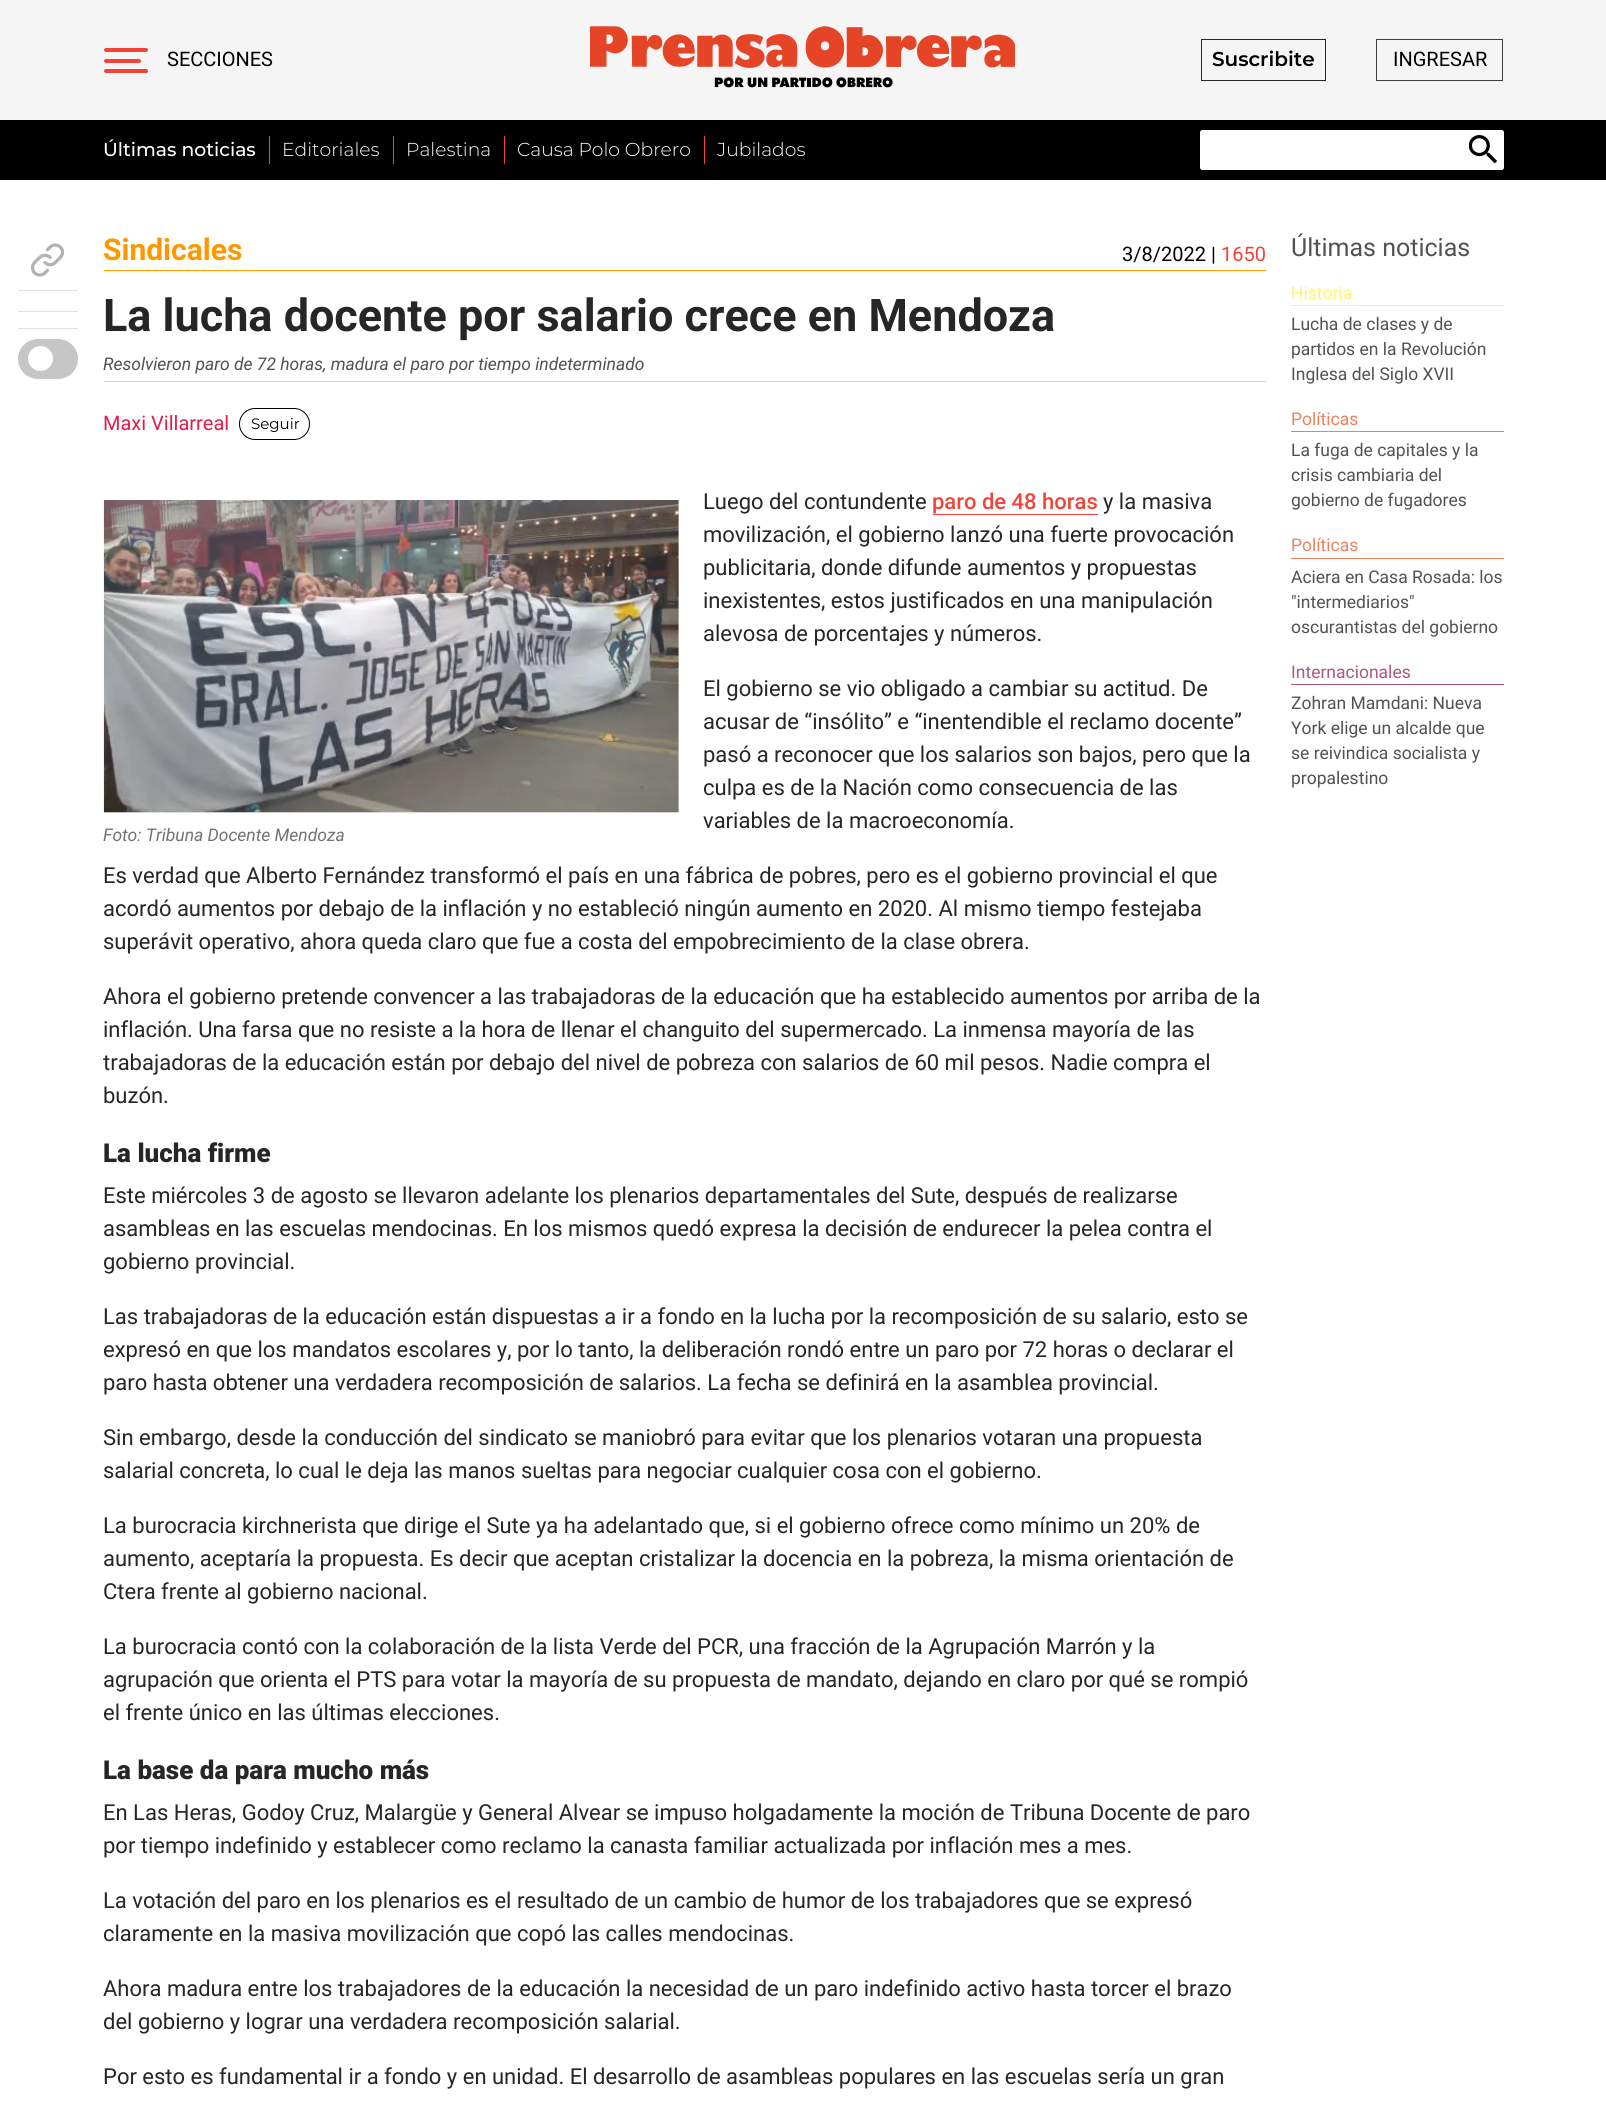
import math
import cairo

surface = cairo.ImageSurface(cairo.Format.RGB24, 1606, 2105)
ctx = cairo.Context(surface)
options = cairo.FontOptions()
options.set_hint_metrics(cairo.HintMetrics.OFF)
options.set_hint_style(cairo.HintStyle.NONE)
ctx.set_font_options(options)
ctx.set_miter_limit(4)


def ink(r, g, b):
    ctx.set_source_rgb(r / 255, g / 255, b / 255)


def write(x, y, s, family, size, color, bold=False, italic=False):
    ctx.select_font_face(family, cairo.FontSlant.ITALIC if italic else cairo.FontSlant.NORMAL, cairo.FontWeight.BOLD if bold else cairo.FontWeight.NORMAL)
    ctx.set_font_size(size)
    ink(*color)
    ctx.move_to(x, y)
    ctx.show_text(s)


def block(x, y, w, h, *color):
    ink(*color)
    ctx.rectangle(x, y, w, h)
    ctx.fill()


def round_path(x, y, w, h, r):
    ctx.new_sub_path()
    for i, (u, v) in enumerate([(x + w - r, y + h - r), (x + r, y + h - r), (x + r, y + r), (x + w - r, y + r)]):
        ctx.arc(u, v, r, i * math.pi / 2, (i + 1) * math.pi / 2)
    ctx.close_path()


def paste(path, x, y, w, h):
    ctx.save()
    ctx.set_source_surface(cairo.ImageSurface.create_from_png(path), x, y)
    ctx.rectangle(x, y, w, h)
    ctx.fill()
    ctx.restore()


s1 = dict(family="Roboto", size=20, color=(0, 0, 0))
s2 = dict(family="Montserrat SemiBold", size=20, color=(0, 0, 0))
s3 = dict(family="Montserrat Medium", size=18.75, color=(255, 255, 255))
s4 = dict(family="Montserrat Light", size=18.75, color=(255, 255, 255))
s5 = dict(family="Roboto", size=30, color=(255, 152, 0), bold=True)
s6 = dict(family="Roboto", size=20, color=(244, 67, 54))
s7 = dict(family="Roboto", size=45, color=(38, 38, 38), bold=True)
s8 = dict(family="Roboto", size=17.5, color=(82, 82, 82), italic=True)
s9 = dict(family="Roboto", size=20, color=(225, 29, 72))
s10 = dict(family="Montserrat", size=15, color=(0, 0, 0))
s11 = dict(family="Roboto", size=22, color=(38, 38, 38))
s12 = dict(family="Roboto Medium", size=22, color=(244, 67, 54))
s13 = dict(family="Roboto Black", size=26, color=(38, 38, 38))
s14 = dict(family="Roboto", size=17.5, color=(115, 115, 115), italic=True)
s15 = dict(family="Roboto", size=25, color=(82, 82, 82))
s16 = dict(family="Roboto", size=17.5, color=(255, 243, 112))
s17 = dict(family="Roboto", size=17.5, color=(82, 82, 82))
s18 = dict(family="Roboto", size=17.5, color=(238, 128, 94))
s19 = dict(family="Roboto", size=17.5, color=(172, 86, 132))

ink(255, 255, 255)
ctx.paint()
block(0, 0, 1606, 120, 245, 245, 245)
ink(244, 67, 54)
round_path(104, 48, 44, 4, 2)
ctx.fill()
round_path(104, 59, 37, 4, 2)
ctx.fill()
round_path(104, 69, 44, 4, 2)
ctx.fill()
write(167, 66, "SECCIONES", **s1)
paste("pic1.png", 590, 26, 425, 62)
ctx.rectangle(1201.5, 39.5, 124, 41)
ink(38, 38, 38)
ctx.set_line_width(1)
ctx.stroke()
write(1212, 66, "Suscribite", **s2)
ctx.rectangle(1376.5, 39.5, 126, 41)
ink(64, 64, 64)
ctx.stroke()
write(1393, 66, "INGRESAR", **s1)
block(0, 120, 1606, 60, 0, 0, 0)
write(103, 156, "Últimas noticias", **s3)
block(269, 136, 1, 28, 244, 67, 54)
write(282, 156, "Editoriales", **s4)
block(393, 136, 1, 28, 244, 67, 54)
write(406, 156, "Palestina", **s4)
block(504, 136, 1, 28, 244, 67, 54)
write(517, 156, "Causa Polo Obrero", **s4)
block(704, 136, 1, 28, 244, 67, 54)
write(717, 156, "Jubilados", **s4)
ctx.new_path()
ctx.move_to(1202.5, 130)
ctx.line_to(1464, 130)
ctx.line_to(1464, 170)
ctx.line_to(1202.5, 170)
ctx.curve_to(1201, 170, 1200, 169, 1200, 167.5)
ctx.line_to(1200, 132.5)
ctx.curve_to(1200, 131, 1201, 130, 1202.5, 130)
ctx.close_path()
ctx.fill()
ctx.new_path()
ctx.move_to(1464, 130)
ctx.line_to(1501.5, 130)
ctx.curve_to(1503, 130, 1504, 131, 1504, 132.5)
ctx.line_to(1504, 167.5)
ctx.curve_to(1504, 169, 1503, 170, 1501.5, 170)
ctx.line_to(1464, 170)
ctx.close_path()
ctx.fill()
paste("pic2.png", 1469, 135, 28, 29)
paste("pic3.png", 30, 243, 35, 34)
block(18, 290, 60, 1, 227, 227, 227)
block(18, 311, 60, 1, 227, 227, 227)
block(18, 328, 60, 1, 227, 227, 227)
ink(198, 198, 198)
round_path(18, 339, 60, 40, 20)
ctx.fill()
ink(255, 255, 255)
ctx.arc(40.5, 358.5, 12.5, 0, 2 * math.pi)
ctx.fill()
block(104, 270, 1162, 1, 255, 152, 0)
write(103, 260, "Sindicales", **s5)
write(1122, 261, "3/8/2022 |", **s1)
write(1221, 261, "1650", **s6)
write(103, 331, "La lucha docente por salario crece en Mendoza", **s7)
block(104, 381, 1162, 1, 212, 212, 212)
write(103, 370, "Resolvieron paro de 72 horas, madura el paro por tiempo indeterminado", **s8)
write(103, 430, "Maxi Villarreal", **s9)
round_path(239.5, 408.5, 70, 31, 15.5)
ink(0, 0, 0)
ctx.stroke()
write(251, 429, "Seguir", **s10)
write(703, 509, "Luego del contundente", **s11)
write(932, 509, "paro de 48 horas", **s12)
block(933, 514, 165, 1, 244, 67, 54)
write(1103, 509, "y la masiva", **s11)
write(703, 542, "movilización, el gobierno lanzó una fuerte provocación", **s11)
write(703, 575, "publicitaria, donde difunde aumentos y propuestas", **s11)
write(703, 608, "inexistentes, estos justificados en una manipulación", **s11)
write(703, 641, "alevosa de porcentajes y números.", **s11)
write(703, 696, "El gobierno se vio obligado a cambiar su actitud. De", **s11)
write(703, 729, "acusar de “insólito” e “inentendible el reclamo docente”", **s11)
write(703, 762, "pasó a reconocer que los salarios son bajos, pero que la", **s11)
write(703, 795, "culpa es de la Nación como consecuencia de las", **s11)
write(703, 828, "variables de la macroeconomía.", **s11)
write(103, 883, "Es verdad que Alberto Fernández transformó el país en una fábrica de pobres, pero es el gobierno provincial el que", **s11)
write(103, 916, "acordó aumentos por debajo de la inflación y no estableció ningún aumento en 2020. Al mismo tiempo festejaba", **s11)
write(103, 949, "superávit operativo, ahora queda claro que fue a costa del empobrecimiento de la clase obrera.", **s11)
write(103, 1004, "Ahora el gobierno pretende convencer a las trabajadoras de la educación que ha establecido aumentos por arriba de la", **s11)
write(103, 1037, "inflación. Una farsa que no resiste a la hora de llenar el changuito del supermercado. La inmensa mayoría de las", **s11)
write(103, 1070, "trabajadoras de la educación están por debajo del nivel de pobreza con salarios de 60 mil pesos. Nadie compra el", **s11)
write(103, 1103, "buzón.", **s11)
write(103, 1162, "La lucha firme", **s13)
write(103, 1203, "Este miércoles 3 de agosto se llevaron adelante los plenarios departamentales del Sute, después de realizarse", **s11)
write(103, 1236, "asambleas en las escuelas mendocinas. En los mismos quedó expresa la decisión de endurecer la pelea contra el", **s11)
write(103, 1269, "gobierno provincial.", **s11)
write(103, 1324, "Las trabajadoras de la educación están dispuestas a ir a fondo en la lucha por la recomposición de su salario, esto se", **s11)
write(103, 1357, "expresó en que los mandatos escolares y, por lo tanto, la deliberación rondó entre un paro por 72 horas o declarar el", **s11)
write(103, 1390, "paro hasta obtener una verdadera recomposición de salarios. La fecha se definirá en la asamblea provincial.", **s11)
write(103, 1445, "Sin embargo, desde la conducción del sindicato se maniobró para evitar que los plenarios votaran una propuesta", **s11)
write(103, 1478, "salarial concreta, lo cual le deja las manos sueltas para negociar cualquier cosa con el gobierno.", **s11)
write(103, 1533, "La burocracia kirchnerista que dirige el Sute ya ha adelantado que, si el gobierno ofrece como mínimo un 20% de", **s11)
write(103, 1566, "aumento, aceptaría la propuesta. Es decir que aceptan cristalizar la docencia en la pobreza, la misma orientación de", **s11)
write(103, 1599, "Ctera frente al gobierno nacional.", **s11)
write(103, 1654, "La burocracia contó con la colaboración de la lista Verde del PCR, una fracción de la Agrupación Marrón y la", **s11)
write(103, 1687, "agrupación que orienta el PTS para votar la mayoría de su propuesta de mandato, dejando en claro por qué se rompió", **s11)
write(103, 1720, "el frente único en las últimas elecciones.", **s11)
write(103, 1779, "La base da para mucho más", **s13)
write(103, 1820, "En Las Heras, Godoy Cruz, Malargüe y General Alvear se impuso holgadamente la moción de Tribuna Docente de paro", **s11)
write(103, 1853, "por tiempo indefinido y establecer como reclamo la canasta familiar actualizada por inflación mes a mes.", **s11)
write(103, 1908, "La votación del paro en los plenarios es el resultado de un cambio de humor de los trabajadores que se expresó", **s11)
write(103, 1941, "claramente en la masiva movilización que copó las calles mendocinas.", **s11)
write(103, 1996, "Ahora madura entre los trabajadores de la educación la necesidad de un paro indefinido activo hasta torcer el brazo", **s11)
write(103, 2029, "del gobierno y lograr una verdadera recomposición salarial.", **s11)
write(103, 2084, "Por esto es fundamental ir a fondo y en unidad. El desarrollo de asambleas populares en las escuelas sería un gran", **s11)
block(104, 500, 575, 313, 243, 243, 243)
paste("pic4.png", 103, 500, 576, 313)
write(103, 841, "Foto: Tribuna Docente Mendoza", **s14)
write(1291, 256, "Últimas noticias", **s15)
block(1291, 305, 213, 1, 255, 243, 112)
write(1291, 299, "Historia", **s16)
write(1291, 330, "Lucha de clases y de", **s17)
write(1291, 355, "partidos en la Revolución", **s17)
write(1291, 380, "Inglesa del Siglo XVII", **s17)
block(1291, 431, 213, 1, 238, 128, 94)
write(1291, 425, "Políticas", **s18)
write(1291, 456, "La fuga de capitales y la", **s17)
write(1291, 481, "crisis cambiaria del", **s17)
write(1291, 506, "gobierno de fugadores", **s17)
block(1291, 558, 213, 1, 238, 128, 94)
write(1291, 551, "Políticas", **s18)
write(1291, 583, "Aciera en Casa Rosada: los", **s17)
write(1291, 608, "\"intermediarios\"", **s17)
write(1291, 633, "oscurantistas del gobierno", **s17)
block(1291, 684, 213, 1, 172, 86, 132)
write(1291, 678, "Internacionales", **s19)
write(1291, 709, "Zohran Mamdani: Nueva", **s17)
write(1291, 734, "York elige un alcalde que", **s17)
write(1291, 759, "se reivindica socialista y", **s17)
write(1291, 784, "propalestino", **s17)
surface.write_to_png("screenshot.png")
